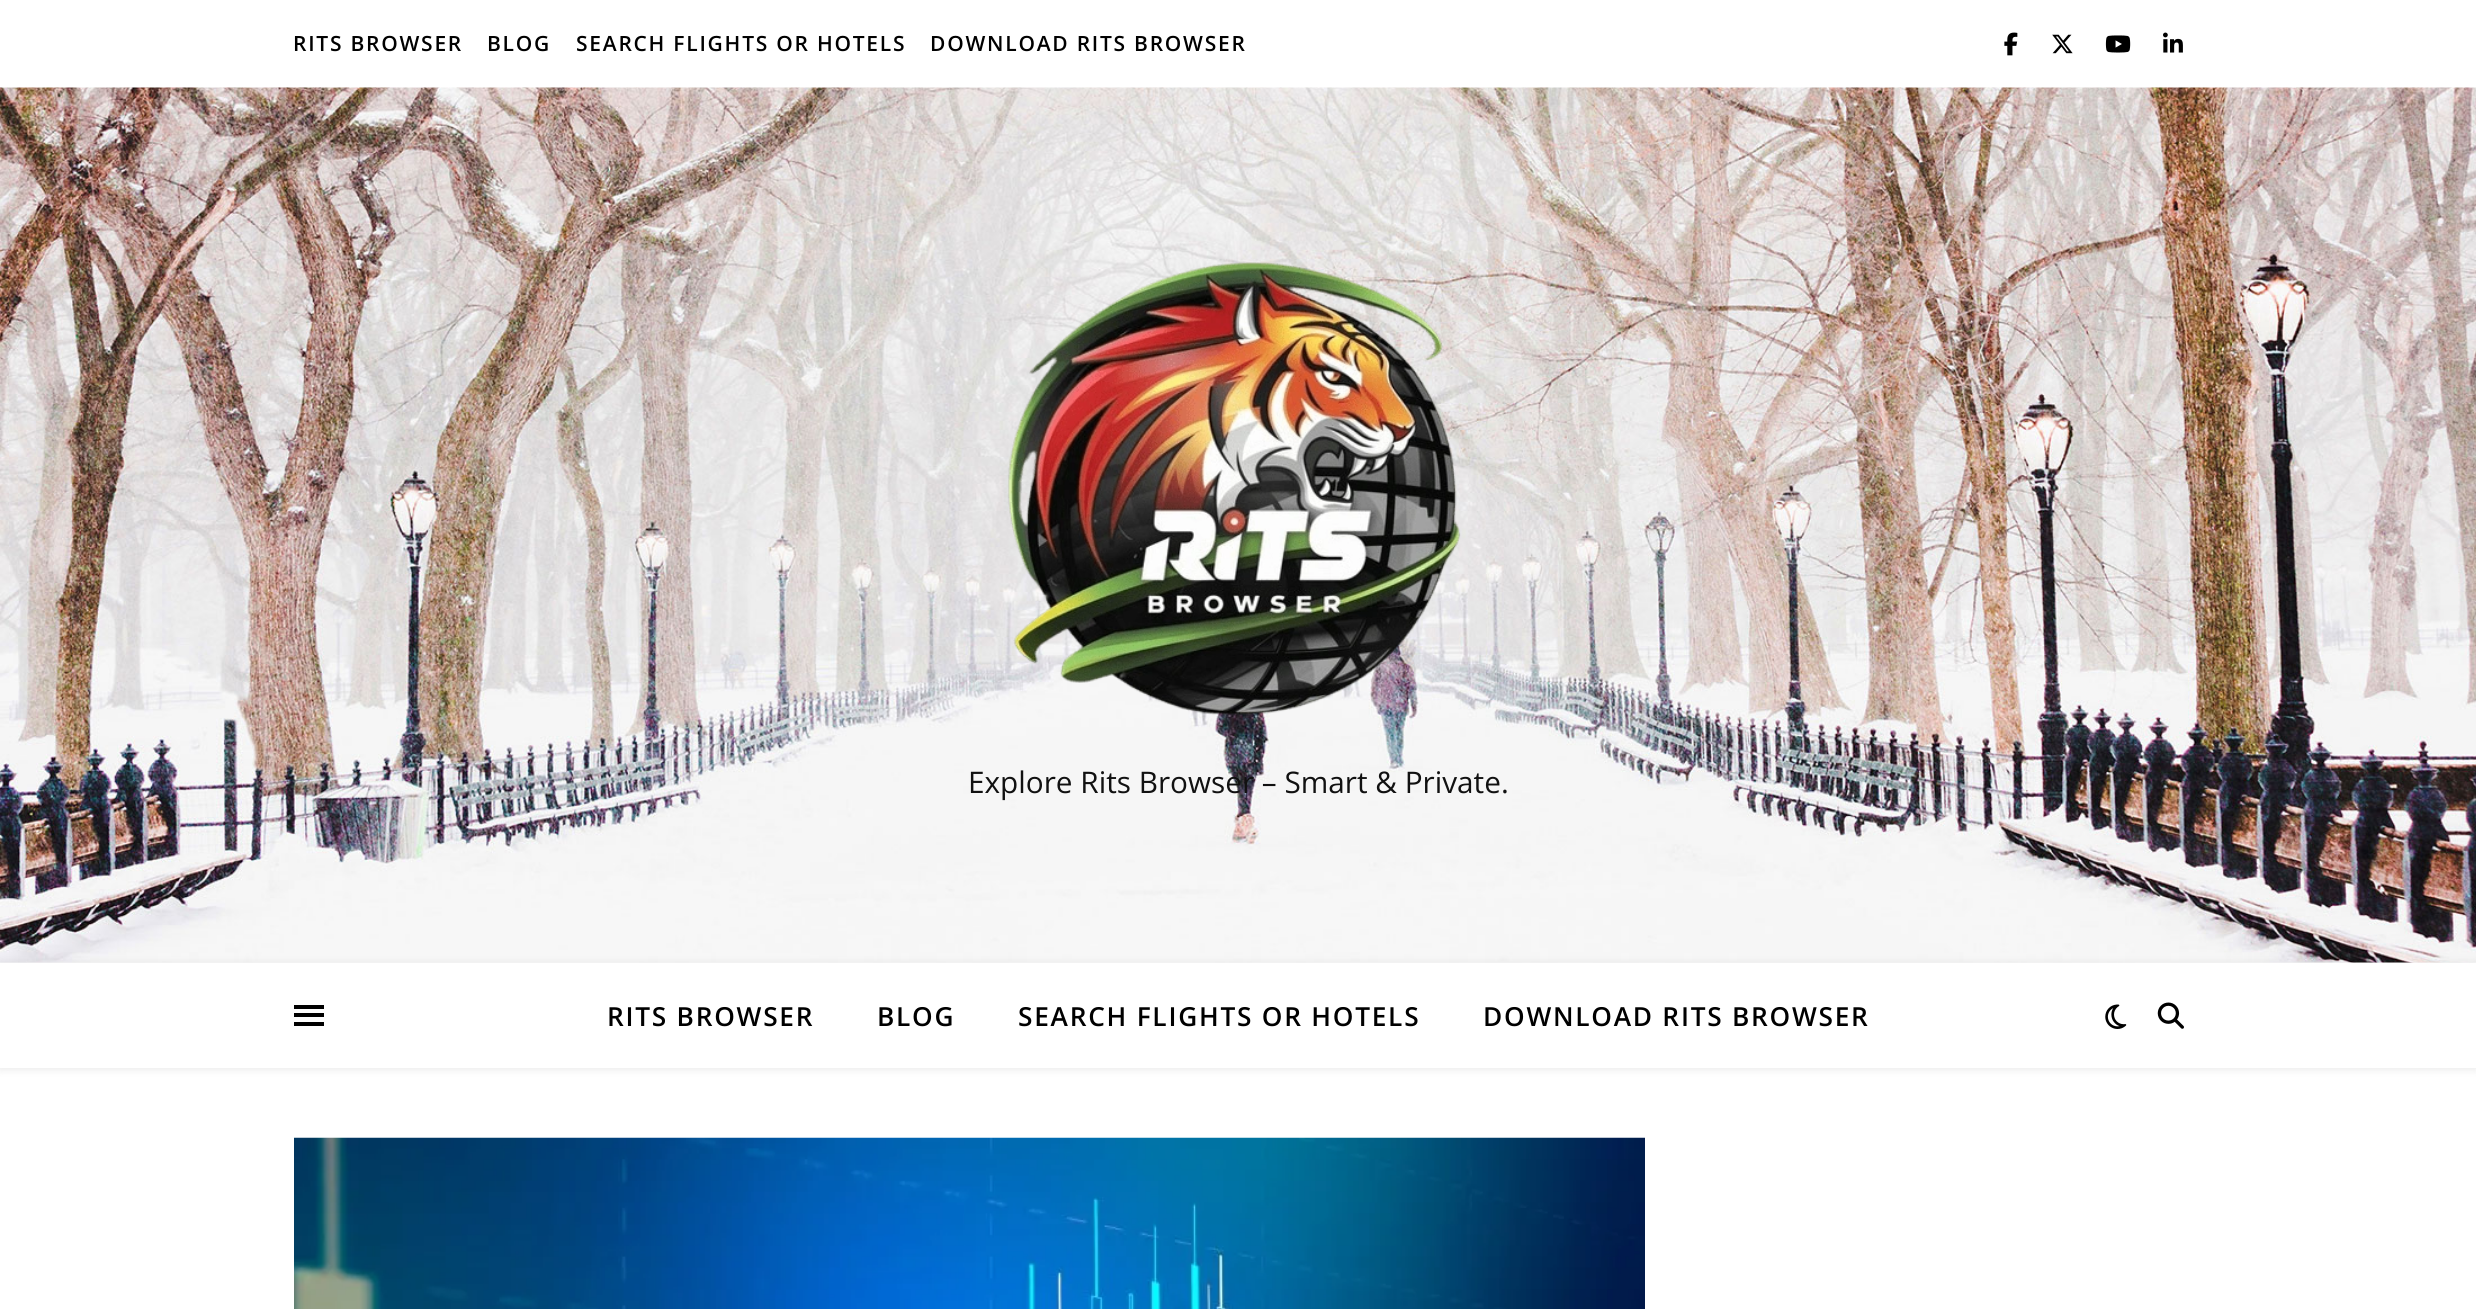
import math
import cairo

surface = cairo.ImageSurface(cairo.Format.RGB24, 2476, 1309)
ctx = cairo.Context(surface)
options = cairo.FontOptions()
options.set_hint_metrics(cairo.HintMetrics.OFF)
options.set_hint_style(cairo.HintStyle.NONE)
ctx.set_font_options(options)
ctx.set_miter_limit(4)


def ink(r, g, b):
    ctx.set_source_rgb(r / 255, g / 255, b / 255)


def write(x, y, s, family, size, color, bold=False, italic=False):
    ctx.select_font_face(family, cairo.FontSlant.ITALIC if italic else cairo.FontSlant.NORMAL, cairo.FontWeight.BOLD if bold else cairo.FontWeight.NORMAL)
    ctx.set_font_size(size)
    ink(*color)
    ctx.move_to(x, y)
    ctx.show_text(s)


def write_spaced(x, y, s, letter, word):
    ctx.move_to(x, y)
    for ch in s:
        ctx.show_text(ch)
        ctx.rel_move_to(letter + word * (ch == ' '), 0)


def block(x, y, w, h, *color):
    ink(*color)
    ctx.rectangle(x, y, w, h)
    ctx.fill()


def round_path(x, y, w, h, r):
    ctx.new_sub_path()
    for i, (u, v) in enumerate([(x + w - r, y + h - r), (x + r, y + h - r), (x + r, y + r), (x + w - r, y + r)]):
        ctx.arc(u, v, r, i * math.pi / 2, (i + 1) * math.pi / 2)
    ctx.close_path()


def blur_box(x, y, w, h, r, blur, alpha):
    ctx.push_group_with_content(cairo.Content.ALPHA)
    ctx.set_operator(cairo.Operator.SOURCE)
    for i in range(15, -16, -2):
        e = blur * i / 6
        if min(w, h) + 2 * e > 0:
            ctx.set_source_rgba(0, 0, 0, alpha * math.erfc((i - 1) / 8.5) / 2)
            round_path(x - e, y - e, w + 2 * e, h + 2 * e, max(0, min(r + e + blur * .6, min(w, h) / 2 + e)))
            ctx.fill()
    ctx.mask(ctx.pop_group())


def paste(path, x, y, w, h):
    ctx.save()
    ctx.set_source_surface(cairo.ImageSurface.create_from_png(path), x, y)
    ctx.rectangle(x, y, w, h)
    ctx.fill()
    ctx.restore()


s1 = dict(family="Open Sans", size=29.75, color=(17, 17, 17))

ink(255, 255, 255)
ctx.paint()
ctx.select_font_face("Open Sans SemiBold")
ctx.set_font_size(21)
ink(0, 0, 0)
write_spaced(293, 51, "RITS BROWSER", 1.75, 0)
write_spaced(487, 51, "BLOG", 1.75, 0)
write_spaced(576, 51, "SEARCH FLIGHTS OR HOTELS", 1.75, 0)
write_spaced(930, 51, "DOWNLOAD RITS BROWSER", 1.75, 0)
paste("pic1.png", 2004, 32, 14, 24)
paste("pic2.png", 2052, 34, 21, 20)
paste("pic3.png", 2105, 35, 26, 18)
paste("pic4.png", 2163, 32, 20, 21)
paste("pic5.png", 0, 87, 2476, 876)
paste("pic6.png", 1008, 262, 453, 453)
write(968, 793, "Explore Rits Browser – Smart & Private.", **s1)
ink(0, 0, 0)
blur_box(0, 964, 2476, 105, 0, 4.5, 0.1)
block(0, 963, 2476, 105, 255, 255, 255)
block(294, 1005, 30, 4, 0, 0, 0)
block(294, 1013, 30, 4, 0, 0, 0)
block(294, 1022, 30, 4, 0, 0, 0)
ctx.select_font_face("Open Sans SemiBold")
ctx.set_font_size(26.25)
write_spaced(607, 1026, "RITS BROWSER", 1.75, 0)
write_spaced(877, 1026, "BLOG", 1.75, 0)
write_spaced(1018, 1026, "SEARCH FLIGHTS OR HOTELS", 1.75, 0)
write_spaced(1483, 1026, "DOWNLOAD RITS BROWSER", 1.75, 0)
paste("pic7.png", 2105, 1004, 22, 25)
paste("pic8.png", 2157, 1002, 27, 27)
paste("pic9.png", 294, 1137, 1351, 172)
surface.write_to_png("screenshot.png")
